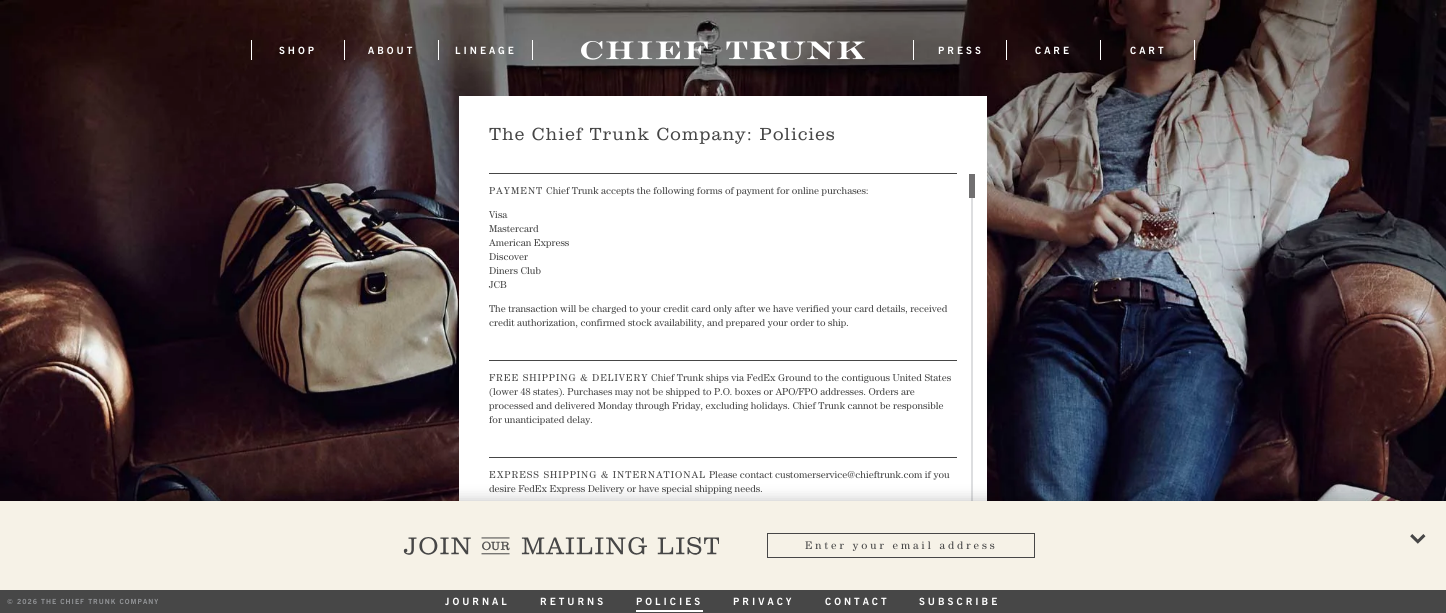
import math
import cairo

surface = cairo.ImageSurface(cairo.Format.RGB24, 1446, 613)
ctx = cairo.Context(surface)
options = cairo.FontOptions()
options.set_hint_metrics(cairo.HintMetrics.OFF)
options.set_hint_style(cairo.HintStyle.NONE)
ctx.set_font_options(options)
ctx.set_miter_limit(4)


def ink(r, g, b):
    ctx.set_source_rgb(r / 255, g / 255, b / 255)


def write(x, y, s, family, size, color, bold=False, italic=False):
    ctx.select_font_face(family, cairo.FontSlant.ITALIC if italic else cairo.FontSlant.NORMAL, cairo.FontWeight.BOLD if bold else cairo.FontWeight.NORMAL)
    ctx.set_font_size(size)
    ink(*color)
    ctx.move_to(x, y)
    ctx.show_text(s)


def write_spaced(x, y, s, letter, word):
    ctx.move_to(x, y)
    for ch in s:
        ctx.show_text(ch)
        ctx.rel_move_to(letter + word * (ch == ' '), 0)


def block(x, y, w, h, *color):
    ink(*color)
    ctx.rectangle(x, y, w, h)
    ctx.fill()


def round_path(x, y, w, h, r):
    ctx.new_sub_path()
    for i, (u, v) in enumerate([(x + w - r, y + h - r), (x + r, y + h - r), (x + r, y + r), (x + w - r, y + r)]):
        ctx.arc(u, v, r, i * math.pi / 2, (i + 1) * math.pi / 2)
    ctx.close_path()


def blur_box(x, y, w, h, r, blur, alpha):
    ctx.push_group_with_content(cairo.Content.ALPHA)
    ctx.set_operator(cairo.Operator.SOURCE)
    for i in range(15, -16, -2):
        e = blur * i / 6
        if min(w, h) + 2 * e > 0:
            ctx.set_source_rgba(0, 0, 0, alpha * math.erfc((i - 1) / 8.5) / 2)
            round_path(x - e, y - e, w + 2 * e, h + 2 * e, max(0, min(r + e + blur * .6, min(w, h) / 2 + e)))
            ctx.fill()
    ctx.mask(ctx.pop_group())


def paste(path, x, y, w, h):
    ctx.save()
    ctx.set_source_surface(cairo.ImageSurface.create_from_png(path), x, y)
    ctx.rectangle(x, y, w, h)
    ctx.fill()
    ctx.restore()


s1 = dict(family="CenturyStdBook", size=10, color=(70, 70, 70))

ink(255, 255, 255)
ctx.paint()
paste("pic1.png", 0, 0, 1446, 501)
paste("pic2.png", 581, 41, 284, 19)
block(344, 40, 1, 20, 255, 255, 255)
block(251, 40, 1, 20, 255, 255, 255)
ctx.select_font_face("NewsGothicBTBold", cairo.FontSlant.NORMAL, cairo.FontWeight.BOLD)
ctx.set_font_size(10)
write_spaced(279, 54, "SHOP", 3, 0)
block(438, 40, 1, 20, 255, 255, 255)
write_spaced(368, 54, "ABOUT", 3, 0)
block(532, 40, 1, 20, 255, 255, 255)
write_spaced(455, 54, "LINEAGE", 3, 0)
block(1006, 40, 1, 20, 255, 255, 255)
block(913, 40, 1, 20, 255, 255, 255)
write_spaced(938, 54, "PRESS", 3, 0)
block(1100, 40, 1, 20, 255, 255, 255)
write_spaced(1035, 54, "CARE", 3, 0)
block(1194, 40, 1, 20, 255, 255, 255)
write_spaced(1130, 54, "CART", 3, 0)
block(459, 96, 528, 405, 255, 255, 255)
block(489, 173, 468, 1, 70, 70, 70)
ctx.select_font_face("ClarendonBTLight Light")
ctx.set_font_size(18)
write_spaced(489, 140, "The Chief Trunk Company: Policies", 1, 0)
ctx.select_font_face("CenturyStdBook")
ctx.set_font_size(10)
write_spaced(489, 194, "PAYMENT", 1, 0)
write(546, 194, "Chief Trunk accepts the following forms of payment for online purchases:", **s1)
write(489, 218, "Visa", **s1)
write(489, 232, "Mastercard", **s1)
write(489, 246, "American Express", **s1)
write(489, 260, "Discover", **s1)
write(489, 274, "Diners Club", **s1)
write(489, 288, "JCB", **s1)
write(489, 312, "The transaction will be charged to your credit card only after we have verified your card details, received", **s1)
write(489, 326, "credit authorization, confirmed stock availability, and prepared your order to ship.", **s1)
block(489, 360, 468, 1, 70, 70, 70)
write_spaced(489, 381, "FREE SHIPPING & DELIVERY", 1, 0)
write(651, 381, "Chief Trunk ships via FedEx Ground to the contiguous United States", **s1)
write(489, 395, "(lower 48 states). Purchases may not be shipped to P.O. boxes or APO/FPO addresses. Orders are", **s1)
write(489, 409, "processed and delivered Monday through Friday, excluding holidays. Chief Trunk cannot be responsible", **s1)
write(489, 423, "for unanticipated delay.", **s1)
block(489, 457, 468, 1, 70, 70, 70)
write_spaced(489, 478, "EXPRESS SHIPPING & INTERNATIONAL", 1, 0)
write(709, 478, "Please contact customerservice@chieftrunk.com if you", **s1)
write(489, 492, "desire FedEx Express Delivery or have special shipping needs.", **s1)
block(969, 174, 6, 24, 113, 112, 113)
block(971, 198, 2, 303, 221, 222, 224)
ink(0, 0, 0)
blur_box(0, 499, 1446, 89, 0, 7, 0.2)
block(0, 501, 1446, 89, 246, 242, 231)
paste("pic3.png", 1410, 534, 16, 10)
paste("pic4.png", 403, 537, 316, 18)
ctx.rectangle(767.5, 533.5, 267, 24)
ink(71, 71, 71)
ctx.set_line_width(1)
ctx.stroke()
ctx.set_font_size(11)
ink(70, 70, 70)
write_spaced(805, 549, "Enter your email address", 3, 0)
block(0, 590, 1446, 23, 71, 71, 71)
ctx.select_font_face("NewsGothicBTBold", cairo.FontSlant.NORMAL, cairo.FontWeight.BOLD)
ctx.set_font_size(7)
ink(147, 149, 152)
write_spaced(7, 604, "© 2026 THE CHIEF TRUNK COMPANY", 1, 0)
ctx.set_font_size(10)
ink(255, 255, 255)
write_spaced(445, 605, "JOURNAL", 3, 0)
write_spaced(540, 605, "RETURNS", 3, 0)
write_spaced(636, 605, "POLICIES", 3, 0)
block(636, 610, 67, 2, 255, 255, 255)
write_spaced(733, 605, "PRIVACY", 3, 0)
write_spaced(825, 605, "CONTACT", 3, 0)
write_spaced(919, 605, "SUBSCRIBE", 3, 0)
surface.write_to_png("screenshot.png")
